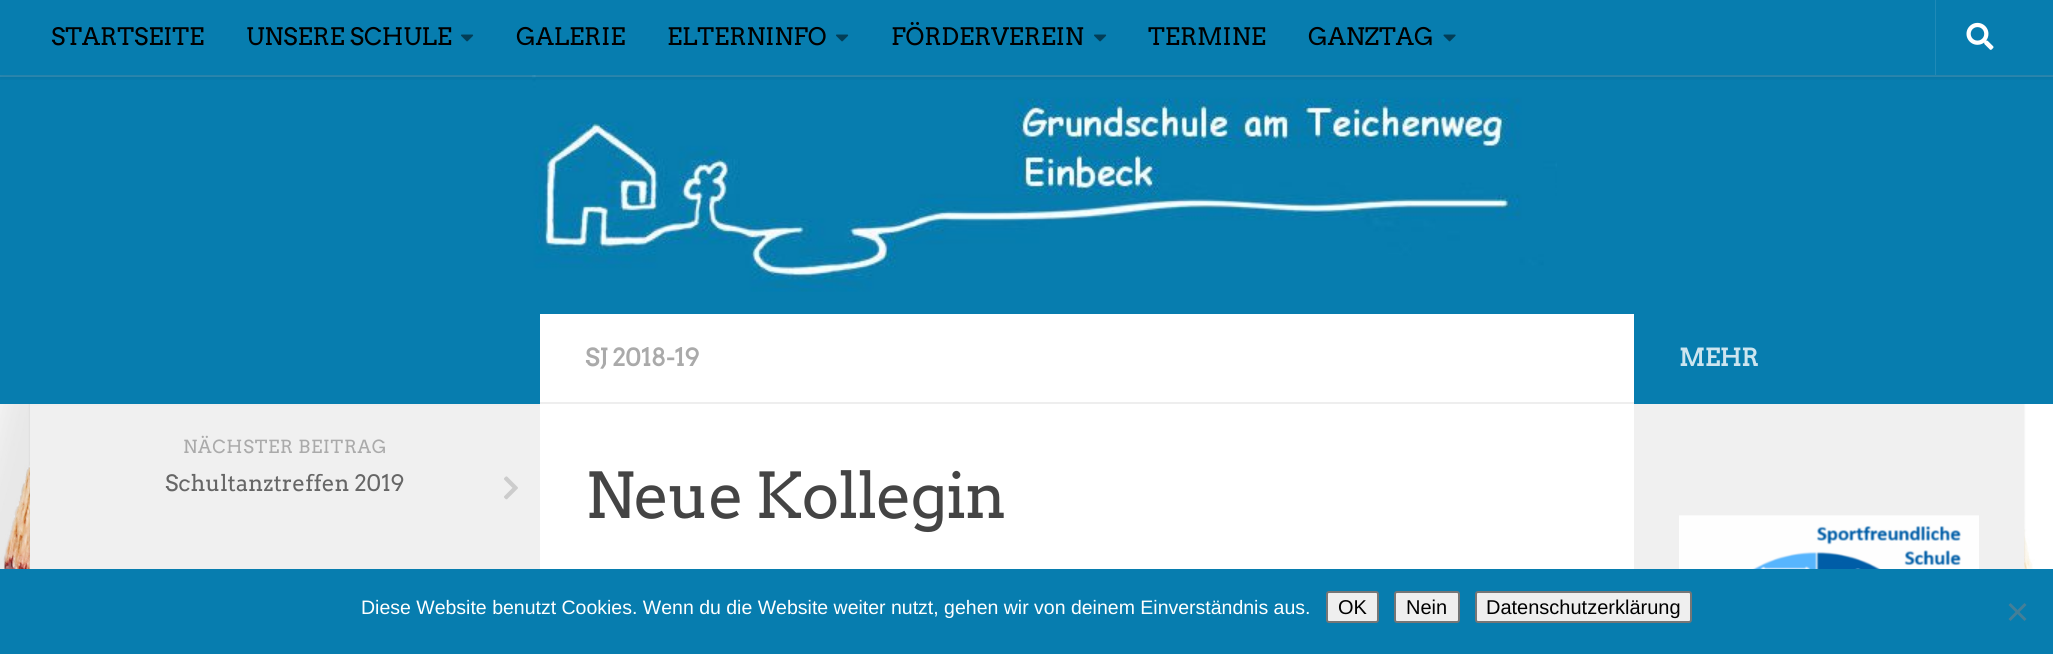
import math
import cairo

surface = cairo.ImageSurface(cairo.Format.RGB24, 2053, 654)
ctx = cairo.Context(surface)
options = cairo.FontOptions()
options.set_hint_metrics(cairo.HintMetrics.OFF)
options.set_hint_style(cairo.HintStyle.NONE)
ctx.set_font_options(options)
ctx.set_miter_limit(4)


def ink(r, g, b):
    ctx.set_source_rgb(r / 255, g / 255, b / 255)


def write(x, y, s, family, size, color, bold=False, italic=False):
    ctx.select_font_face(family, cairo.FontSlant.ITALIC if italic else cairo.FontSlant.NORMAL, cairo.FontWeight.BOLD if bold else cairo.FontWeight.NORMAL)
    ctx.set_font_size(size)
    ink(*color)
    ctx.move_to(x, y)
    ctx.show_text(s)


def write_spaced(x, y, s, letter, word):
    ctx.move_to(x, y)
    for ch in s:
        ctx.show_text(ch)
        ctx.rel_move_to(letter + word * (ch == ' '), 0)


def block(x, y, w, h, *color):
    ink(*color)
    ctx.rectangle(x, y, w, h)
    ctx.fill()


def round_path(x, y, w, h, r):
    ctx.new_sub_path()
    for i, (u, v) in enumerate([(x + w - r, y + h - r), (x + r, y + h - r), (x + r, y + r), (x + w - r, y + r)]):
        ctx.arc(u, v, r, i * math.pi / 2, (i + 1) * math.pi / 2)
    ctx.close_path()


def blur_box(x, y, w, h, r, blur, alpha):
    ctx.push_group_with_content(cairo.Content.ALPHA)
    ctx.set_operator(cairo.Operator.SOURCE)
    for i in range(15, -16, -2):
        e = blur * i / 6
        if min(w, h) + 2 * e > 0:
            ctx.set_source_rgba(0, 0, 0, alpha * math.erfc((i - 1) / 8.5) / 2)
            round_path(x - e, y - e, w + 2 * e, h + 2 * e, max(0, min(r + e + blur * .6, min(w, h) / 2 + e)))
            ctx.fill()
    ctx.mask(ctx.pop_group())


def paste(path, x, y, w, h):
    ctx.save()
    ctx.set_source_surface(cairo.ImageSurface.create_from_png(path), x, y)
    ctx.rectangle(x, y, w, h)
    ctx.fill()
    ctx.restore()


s1 = dict(family="Arvo", size=24, color=(0, 0, 0))
s2 = dict(family="Arvo", size=24, color=(170, 170, 170), bold=True)
s3 = dict(family="Arvo", size=24, color=(205, 229, 239), bold=True)
s4 = dict(family="Arvo", size=22.5, color=(102, 102, 102))
s5 = dict(family="Liberation Sans", size=19.5, color=(255, 255, 255))
s6 = dict(family="Liberation Sans", size=20, color=(0, 0, 0))

ink(255, 255, 255)
ctx.paint()
paste("pic1.png", 0, 404, 2053, 165)
ink(0, 0, 0)
blur_box(30, 315, 1994, 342, 0, 1, 0.1)
block(0, 0, 2053, 404, 7, 125, 175)
paste("pic5.png", 532, 75, 1025, 217)
ctx.set_source_rgba(1, 1, 1, 0.15)
ctx.new_path()
ctx.move_to(0, 75)
ctx.line_to(0, 77)
ctx.line_to(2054, 77)
ctx.line_to(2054, 2)
ctx.line_to(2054, 75)
ctx.close_path()
ctx.fill()
ctx.save()
ctx.rectangle(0, 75, 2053, 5)
ctx.clip()
ink(0, 0, 0)
blur_box(0, 0, 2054, 75, 0, 4, 0.2)
ctx.restore()
write(51, 45, "STARTSEITE", **s1)
write(246, 45, "UNSERE SCHULE", **s1)
paste("pic2.png", 461, 34, 13, 8)
write(516, 45, "GALERIE", **s1)
write(667, 45, "ELTERNINFO", **s1)
paste("pic2.png", 836, 34, 13, 8)
write(891, 45, "FÖRDERVEREIN", **s1)
paste("pic2.png", 1094, 34, 13, 8)
write(1148, 45, "TERMINE", **s1)
write(1308, 45, "GANZTAG", **s1)
paste("pic3.png", 1443, 34, 13, 8)
block(1935, 0, 1, 75, 32, 138, 183)
paste("pic4.png", 1966, 22, 28, 28)
block(540, 314, 1094, 255, 255, 255, 255)
block(540, 402, 1094, 2, 238, 238, 238)
write(585, 366, "SJ 2018-19", **s2)
ctx.select_font_face("Arvo")
ctx.set_font_size(63)
ink(68, 68, 68)
write_spaced(585, 518, "Neue Kollegin", -1.5, 0)
write(1679, 366, "MEHR", **s3)
block(1634, 404, 390, 165, 240, 240, 240)
paste("pic6.png", 1679, 515, 300, 54)
block(30, 404, 510, 2, 238, 238, 238)
block(30, 406, 510, 163, 240, 240, 240)
ctx.select_font_face("Arvo")
ctx.set_font_size(18)
ink(170, 170, 170)
write_spaced(183, 453, "NÄCHSTER BEITRAG", 0.75, 0)
write(165, 491, "Schultanztreffen 2019", **s4)
paste("pic7.png", 504, 476, 14, 24)
block(0, 569, 2053, 85, 7, 125, 175)
write(361, 614, "Diese Website benutzt Cookies. Wenn du die Website weiter nutzt, gehen wir von deinem Einverständnis aus.", **s5)
ink(239, 239, 239)
round_path(1327, 592, 51, 30, 2)
ctx.fill_preserve()
ink(118, 118, 118)
ctx.stroke()
write(1338, 614, "OK", **s6)
ink(239, 239, 239)
round_path(1395, 592, 64, 30, 2)
ctx.fill_preserve()
ink(118, 118, 118)
ctx.stroke()
write(1406, 614, "Nein", **s6)
ink(239, 239, 239)
round_path(1476, 592, 215, 30, 2)
ctx.fill_preserve()
ink(118, 118, 118)
ctx.stroke()
write(1486, 614, "Datenschutzerklärung", **s6)
ink(68, 127, 152)
ctx.new_path()
ctx.move_to(2024.5, 603)
ctx.line_to(2026.5, 605)
ctx.line_to(2010.5, 621)
ctx.line_to(2008.5, 619)
ctx.close_path()
ctx.fill()
ctx.new_path()
ctx.move_to(2008.5, 605)
ctx.line_to(2010.5, 603)
ctx.line_to(2026.5, 619)
ctx.line_to(2024.5, 621)
ctx.close_path()
ctx.fill()
surface.write_to_png("screenshot.png")
